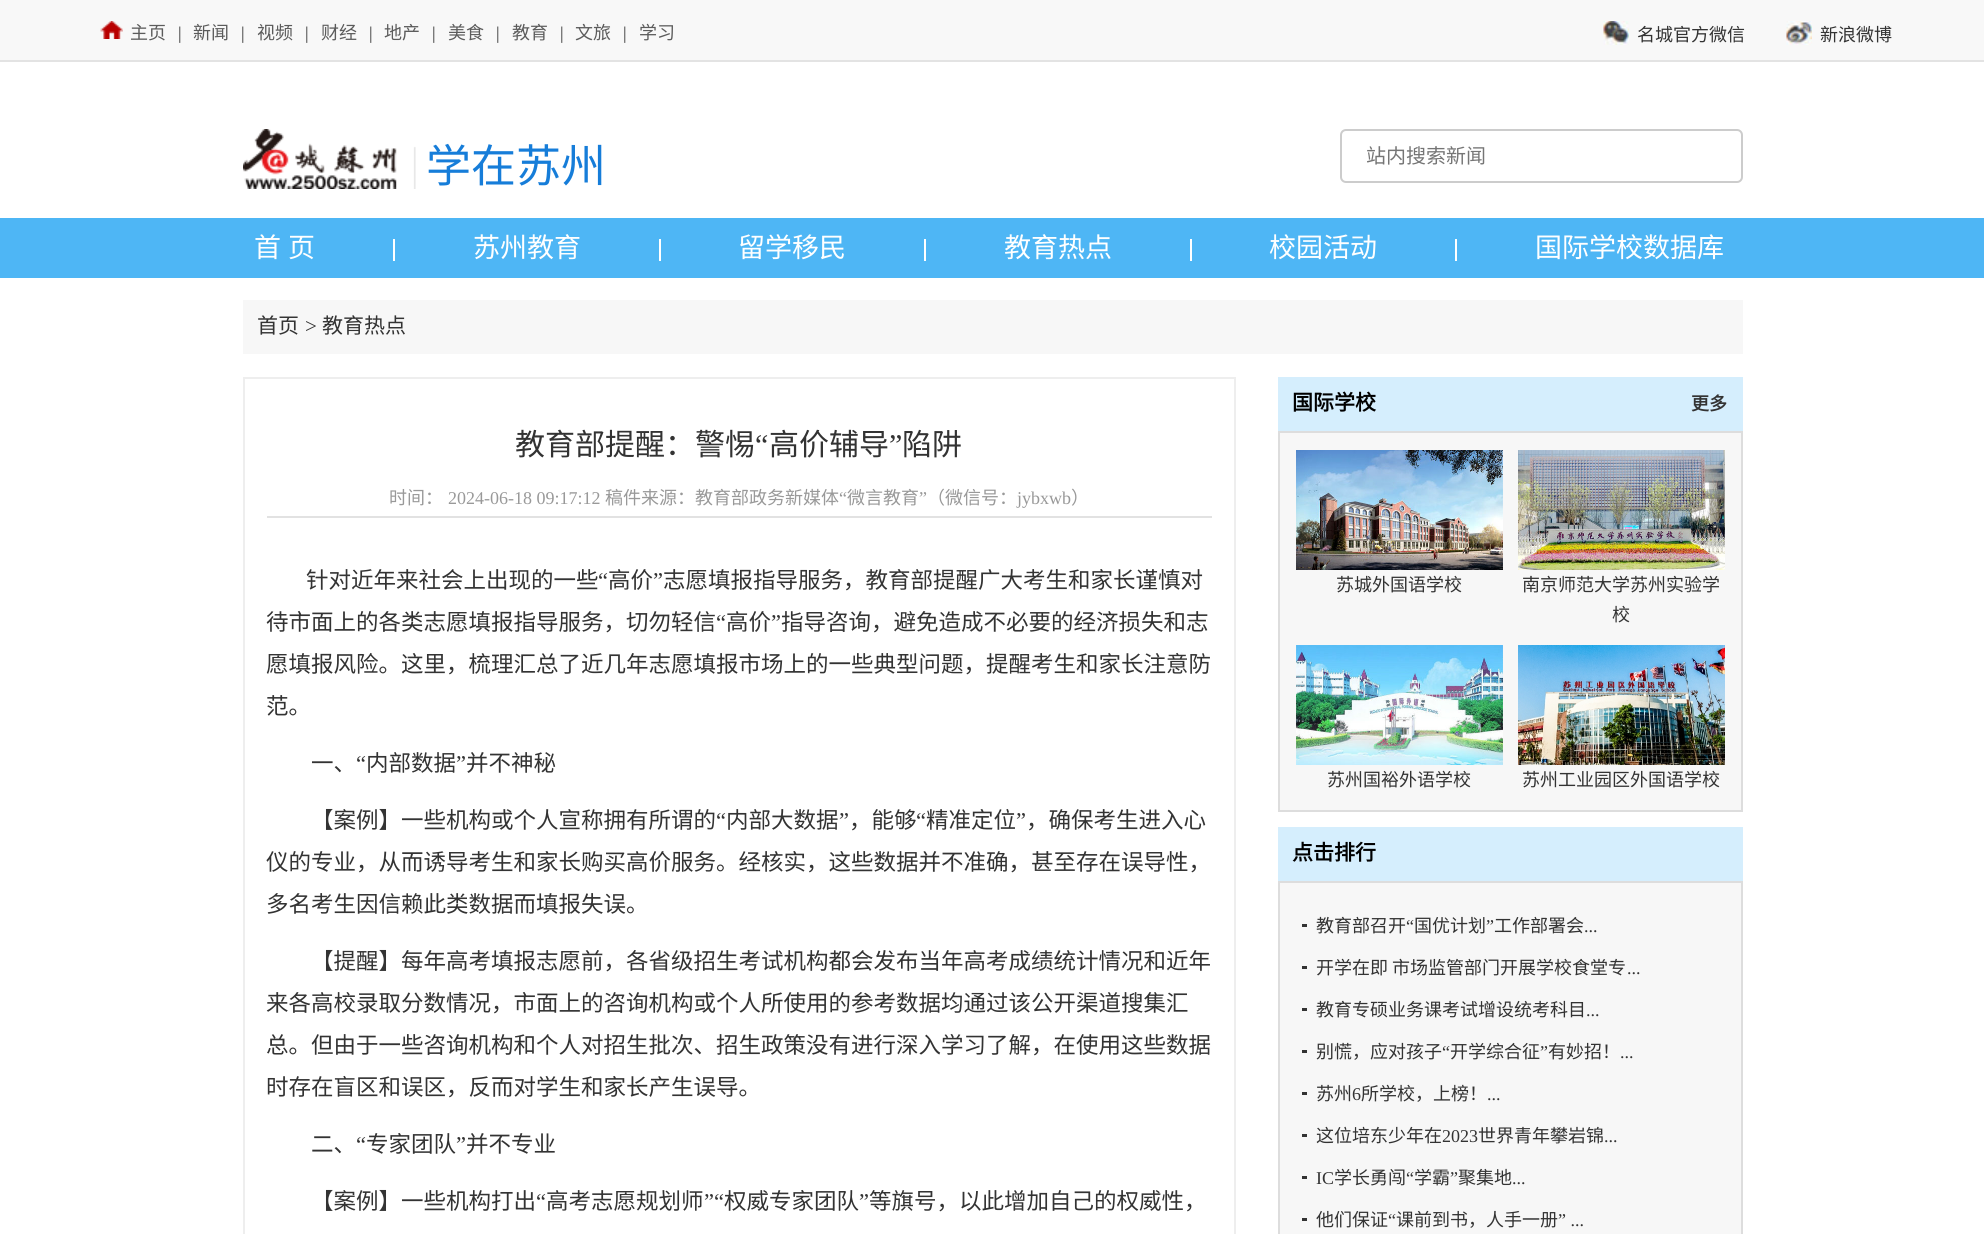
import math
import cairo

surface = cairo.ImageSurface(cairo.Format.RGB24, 1984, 1234)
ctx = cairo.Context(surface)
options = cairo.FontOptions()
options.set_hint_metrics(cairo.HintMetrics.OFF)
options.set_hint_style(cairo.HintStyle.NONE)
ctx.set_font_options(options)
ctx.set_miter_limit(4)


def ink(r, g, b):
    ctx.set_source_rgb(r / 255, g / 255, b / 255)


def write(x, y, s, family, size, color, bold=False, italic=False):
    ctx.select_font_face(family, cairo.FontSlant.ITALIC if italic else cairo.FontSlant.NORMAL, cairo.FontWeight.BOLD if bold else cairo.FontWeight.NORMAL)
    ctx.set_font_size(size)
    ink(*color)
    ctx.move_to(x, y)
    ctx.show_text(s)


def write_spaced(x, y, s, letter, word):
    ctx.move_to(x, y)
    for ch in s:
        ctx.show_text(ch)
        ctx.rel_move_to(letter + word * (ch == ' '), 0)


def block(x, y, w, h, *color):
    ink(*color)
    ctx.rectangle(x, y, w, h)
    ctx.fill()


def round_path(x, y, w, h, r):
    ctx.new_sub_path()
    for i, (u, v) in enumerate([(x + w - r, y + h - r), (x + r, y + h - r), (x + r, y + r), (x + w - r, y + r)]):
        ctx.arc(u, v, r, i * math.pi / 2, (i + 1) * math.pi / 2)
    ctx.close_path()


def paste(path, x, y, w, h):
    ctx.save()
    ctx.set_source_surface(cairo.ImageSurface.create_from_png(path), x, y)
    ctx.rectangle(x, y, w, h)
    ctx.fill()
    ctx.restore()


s1 = dict(family="Noto Sans CJK SC", size=18, color=(91, 91, 91))
s2 = dict(family="Liberation Serif", size=18, color=(51, 51, 51))
s3 = dict(family="Noto Sans CJK SC", size=18, color=(51, 51, 51))
s4 = dict(family="Noto Sans CJK SC", size=45, color=(22, 125, 217))
s5 = dict(family="Noto Sans CJK SC", size=20, color=(117, 117, 117))
s6 = dict(family="Noto Sans CJK SC", size=27, color=(255, 255, 255))
s7 = dict(family="Noto Sans CJK SC", size=21, color=(51, 51, 51))
s8 = dict(family="Liberation Serif", size=21, color=(51, 51, 51))
s9 = dict(family="Noto Sans CJK SC", size=30, color=(51, 51, 51))
s10 = dict(family="Liberation Serif", size=30, color=(51, 51, 51))
s11 = dict(family="Noto Sans CJK SC", size=18, color=(153, 153, 153))
s12 = dict(family="Liberation Serif", size=18, color=(153, 153, 153))
s13 = dict(family="Noto Sans CJK SC", size=22.5, color=(51, 51, 51))
s14 = dict(family="Liberation Serif", size=22.5, color=(51, 51, 51))
s15 = dict(family="Noto Sans CJK SC", size=21, color=(0, 0, 0), bold=True)
s16 = dict(family="Noto Sans CJK SC", size=18, color=(51, 51, 51), bold=True)

ink(255, 255, 255)
ctx.paint()
block(0, 0, 1984, 60, 248, 248, 248)
block(0, 60, 1984, 2, 227, 227, 227)
paste("pic1.png", 100, 21, 23, 18)
write(130, 39, "主页", **s1)
write(178, 39, "|", **s2)
write(193, 39, "新闻", **s1)
write(241, 39, "|", **s2)
write(257, 39, "视频", **s1)
write(305, 39, "|", **s2)
write(321, 39, "财经", **s1)
write(369, 39, "|", **s2)
write(384, 39, "地产", **s1)
write(432, 39, "|", **s2)
write(448, 39, "美食", **s1)
write(496, 39, "|", **s2)
write(512, 39, "教育", **s1)
write(560, 39, "|", **s2)
write(575, 39, "文旅", **s1)
write(623, 39, "|", **s2)
write(639, 39, "学习", **s1)
paste("pic2.png", 1603, 21, 26, 24)
write(1637, 41, "名城官方微信", **s3)
paste("pic3.png", 1786, 21, 26, 24)
write(1820, 41, "新浪微博", **s3)
paste("pic4.png", 243, 129, 173, 60)
write(426, 182, "学在苏州", **s4)
round_path(1341, 130, 401, 52, 5)
ink(204, 204, 204)
ctx.stroke()
write(1366, 163, "站内搜索新闻", **s5)
block(0, 218, 1984, 60, 78, 182, 245)
ctx.set_font_size(27)
ink(255, 255, 255)
write_spaced(254, 257, "首 页", 0, 1)
block(393, 239, 2, 22, 255, 255, 255)
write(473, 257, "苏州教育", **s6)
block(659, 239, 2, 22, 255, 255, 255)
write(738, 257, "留学移民", **s6)
block(924, 239, 2, 22, 255, 255, 255)
write(1004, 257, "教育热点", **s6)
block(1190, 239, 2, 22, 255, 255, 255)
write(1269, 257, "校园活动", **s6)
block(1455, 239, 2, 22, 255, 255, 255)
write(1535, 257, "国际学校数据库", **s6)
block(243, 300, 1500, 54, 247, 247, 247)
write(257, 333, "首页", **s7)
write(305, 333, ">", **s8)
write(322, 333, "教育热点", **s7)
ctx.rectangle(244, 378, 991, 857)
ink(238, 238, 238)
ctx.stroke()
write(515, 455, "教育部提醒：警惕", **s9)
write(755, 455, "“", **s10)
write(769, 455, "高价辅导", **s9)
write(889, 455, "”", **s10)
write(902, 455, "陷阱", **s9)
block(267, 516, 945, 2, 226, 226, 226)
write(389, 504, "时间：", **s11)
write(448, 504, "2024-06-18 09:17:12", **s12)
write(605, 504, "稿件来源：教育部政务新媒体", **s11)
write(839, 504, "“", **s12)
write(847, 504, "微言教育", **s11)
write(919, 504, "”", **s12)
write(927, 504, "（微信号：", **s11)
write(1017, 504, "jybxwb", **s12)
write(1071, 504, "）", **s11)
write(306, 588, "针对近年来社会上出现的一些", **s13)
write(598, 588, "“", **s14)
write(608, 588, "高价", **s13)
write(653, 588, "”", **s14)
write(663, 588, "志愿填报指导服务，教育部提醒广大考生和家长谨慎对", **s13)
write(266, 630, "待市面上的各类志愿填报指导服务，切勿轻信", **s13)
write(716, 630, "“", **s14)
write(726, 630, "高价", **s13)
write(771, 630, "”", **s14)
write(781, 630, "指导咨询，避免造成不必要的经济损失和志", **s13)
write(266, 672, "愿填报风险。这里，梳理汇总了近几年志愿填报市场上的一些典型问题，提醒考生和家长注意防", **s13)
write(266, 714, "范。", **s13)
write(356, 771, "“", **s14)
write(366, 771, "内部数据", **s13)
write(456, 771, "”", **s14)
write(466, 771, "并不神秘", **s13)
write(311, 771, "一、", **s13)
write(311, 828, "【案例】一些机构或个人宣称拥有所谓的", **s13)
write(716, 828, "“", **s14)
write(726, 828, "内部大数据", **s13)
write(839, 828, "”", **s14)
write(849, 828, "，能够", **s13)
write(916, 828, "“", **s14)
write(926, 828, "精准定位", **s13)
write(1016, 828, "”", **s14)
write(1026, 828, "，确保考生进入心", **s13)
write(266, 870, "仪的专业，从而诱导考生和家长购买高价服务。经核实，这些数据并不准确，甚至存在误导性，", **s13)
write(266, 912, "多名考生因信赖此类数据而填报失误。", **s13)
write(311, 969, "【提醒】每年高考填报志愿前，各省级招生考试机构都会发布当年高考成绩统计情况和近年", **s13)
write(266, 1011, "来各高校录取分数情况，市面上的咨询机构或个人所使用的参考数据均通过该公开渠道搜集汇", **s13)
write(266, 1053, "总。但由于一些咨询机构和个人对招生批次、招生政策没有进行深入学习了解，在使用这些数据", **s13)
write(266, 1095, "时存在盲区和误区，反而对学生和家长产生误导。", **s13)
write(311, 1152, "二、", **s13)
write(356, 1152, "“", **s14)
write(366, 1152, "专家团队", **s13)
write(456, 1152, "”", **s14)
write(466, 1152, "并不专业", **s13)
write(311, 1209, "【案例】一些机构打出", **s13)
write(536, 1209, "“", **s14)
write(546, 1209, "高考志愿规划师", **s13)
write(704, 1209, "”“", **s14)
write(724, 1209, "权威专家团队", **s13)
write(859, 1209, "”", **s14)
write(869, 1209, "等旗号，以此增加自己的权威性，", **s13)
block(1278, 377, 465, 54, 213, 238, 253)
write(1292, 410, "国际学校", **s15)
write(1691, 410, "更多", **s16)
ink(247, 247, 247)
ctx.rectangle(1279, 432, 463, 379)
ctx.fill_preserve()
ink(221, 221, 221)
ctx.stroke()
paste("pic5.png", 1296, 450, 207, 120)
write(1336, 591, "苏城外国语学校", **s3)
paste("pic6.png", 1518, 450, 207, 120)
write(1522, 591, "南京师范大学苏州实验学", **s3)
write(1612, 621, "校", **s3)
paste("pic7.png", 1296, 645, 207, 120)
write(1327, 786, "苏州国裕外语学校", **s3)
paste("pic8.png", 1518, 645, 207, 120)
write(1522, 786, "苏州工业园区外国语学校", **s3)
block(1278, 827, 465, 54, 213, 238, 253)
write(1292, 860, "点击排行", **s15)
ink(247, 247, 247)
ctx.rectangle(1279, 882, 463, 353)
ctx.fill_preserve()
ink(221, 221, 221)
ctx.stroke()
block(1302, 924, 5, 3, 51, 51, 51)
write(1316, 932, "教育部召开", **s3)
write(1406, 932, "“", **s2)
write(1414, 932, "国优计划", **s3)
write(1486, 932, "”", **s2)
write(1494, 932, "工作部署会", **s3)
write(1584, 932, "...", **s2)
block(1302, 966, 5, 3, 51, 51, 51)
write(1316, 974, "开学在即 市场监管部门开展学校食堂专", **s3)
write(1627, 974, "...", **s2)
block(1302, 1008, 5, 3, 51, 51, 51)
write(1316, 1016, "教育专硕业务课考试增设统考科目", **s3)
write(1586, 1016, "...", **s2)
block(1302, 1050, 5, 3, 51, 51, 51)
write(1316, 1058, "别慌，应对孩子", **s3)
write(1442, 1058, "“", **s2)
write(1450, 1058, "开学综合征", **s3)
write(1540, 1058, "”", **s2)
write(1548, 1058, "有妙招！", **s3)
write(1620, 1058, "...", **s2)
block(1302, 1092, 5, 3, 51, 51, 51)
write(1316, 1100, "苏州", **s3)
write(1352, 1100, "6", **s2)
write(1361, 1100, "所学校，上榜！", **s3)
write(1487, 1100, "...", **s2)
block(1302, 1134, 5, 3, 51, 51, 51)
write(1316, 1142, "这位培东少年在", **s3)
write(1442, 1142, "2023", **s2)
write(1478, 1142, "世界青年攀岩锦", **s3)
write(1604, 1142, "...", **s2)
block(1302, 1176, 5, 3, 51, 51, 51)
write(1316, 1184, "IC", **s2)
write(1334, 1184, "学长勇闯", **s3)
write(1406, 1184, "“", **s2)
write(1414, 1184, "学霸", **s3)
write(1450, 1184, "”", **s2)
write(1458, 1184, "聚集地", **s3)
write(1512, 1184, "...", **s2)
block(1302, 1218, 5, 3, 51, 51, 51)
write(1316, 1226, "他们保证", **s3)
write(1388, 1226, "“", **s2)
write(1396, 1226, "课前到书，人手一册", **s3)
write(1558, 1226, "” ...", **s2)
surface.write_to_png("screenshot.png")
